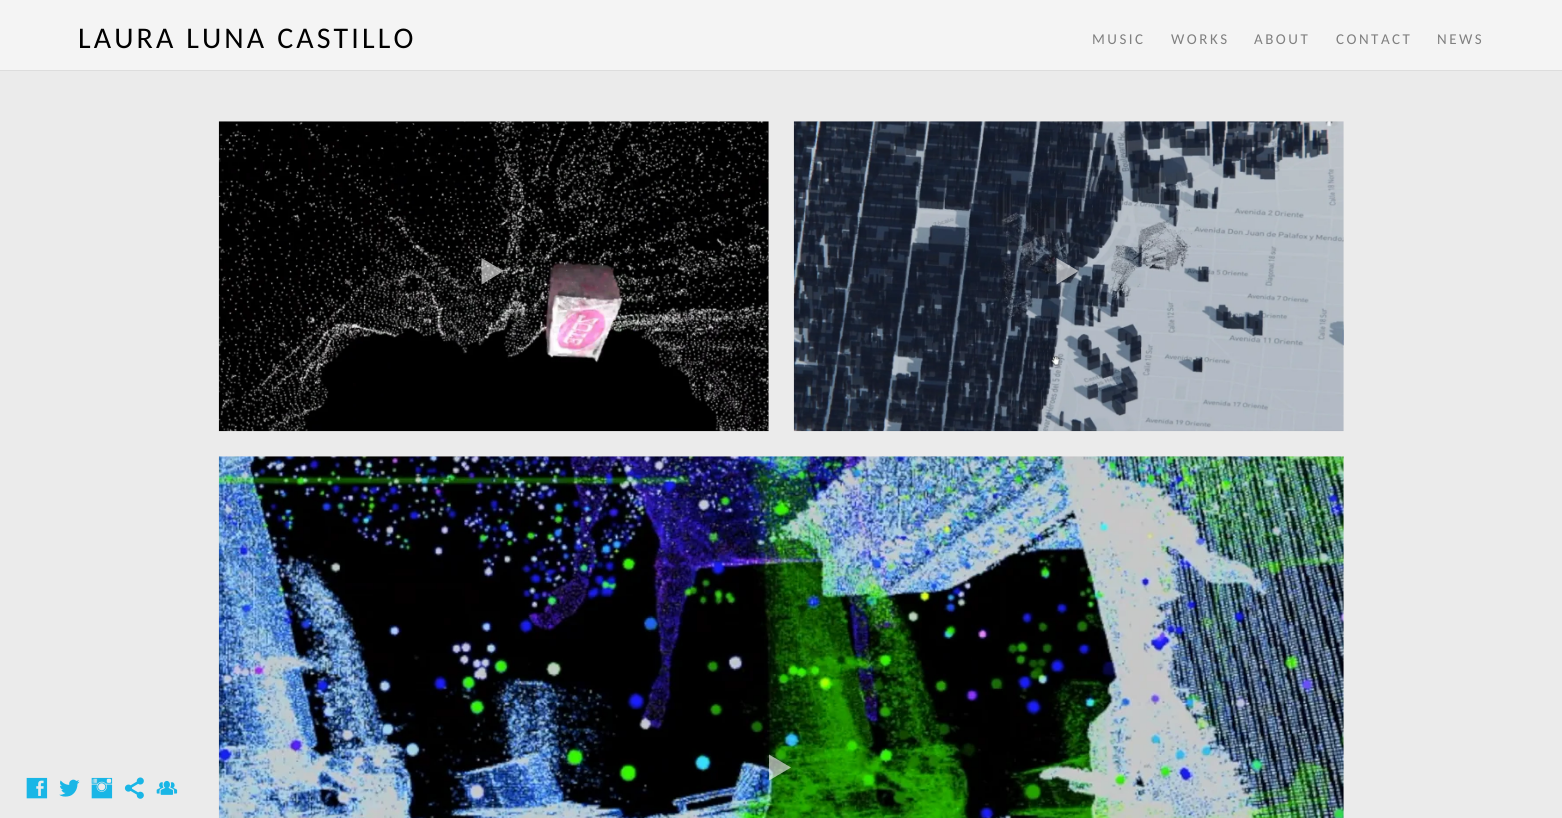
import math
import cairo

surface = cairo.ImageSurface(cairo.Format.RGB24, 1562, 818)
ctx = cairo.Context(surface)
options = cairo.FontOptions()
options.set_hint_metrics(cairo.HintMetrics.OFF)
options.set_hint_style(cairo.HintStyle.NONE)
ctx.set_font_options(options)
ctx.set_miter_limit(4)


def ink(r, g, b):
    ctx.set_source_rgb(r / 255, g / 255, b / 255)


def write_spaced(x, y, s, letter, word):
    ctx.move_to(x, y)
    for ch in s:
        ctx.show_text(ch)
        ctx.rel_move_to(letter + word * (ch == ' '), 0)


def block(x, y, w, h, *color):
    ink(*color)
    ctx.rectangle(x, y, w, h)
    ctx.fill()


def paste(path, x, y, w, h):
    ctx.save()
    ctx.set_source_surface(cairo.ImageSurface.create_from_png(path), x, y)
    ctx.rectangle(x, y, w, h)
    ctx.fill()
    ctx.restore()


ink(235, 235, 235)
ctx.paint()
block(0, 0, 1562, 70, 244, 244, 244)
block(0, 70, 1562, 1, 221, 221, 221)
ctx.select_font_face("Carlito")
ctx.set_font_size(30)
ink(0, 0, 0)
write_spaced(78, 48, "LAURA LUNA CASTILLO", 3.1, 0)
ctx.set_font_size(15)
ink(128, 128, 128)
write_spaced(1092, 44, "MUSIC", 2.5, 0)
write_spaced(1171, 44, "WORKS", 2.5, 0)
write_spaced(1254, 44, "ABOUT", 2.5, 0)
write_spaced(1336, 44, "CONTACT", 2.5, 0)
write_spaced(1437, 44, "NEWS", 2.5, 0)
paste("pic1.png", 26, 777, 22, 22)
paste("pic2.png", 59, 779, 21, 18)
paste("pic3.png", 91, 777, 22, 22)
paste("pic4.png", 124, 777, 20, 22)
paste("pic5.png", 156, 780, 22, 15)
paste("pic6.png", 218, 121, 551, 311)
ctx.set_source_rgba(1, 1, 1, 0.6)
ctx.new_path()
ctx.move_to(481.5, 258)
ctx.line_to(481.5, 284.5)
ctx.line_to(503.5, 271)
ctx.close_path()
ctx.fill()
paste("pic7.png", 793, 121, 551, 311)
ctx.new_path()
ctx.move_to(1056.5, 258)
ctx.line_to(1056.5, 284.5)
ctx.line_to(1078.5, 271)
ctx.close_path()
ctx.fill()
paste("pic8.png", 218, 456, 1126, 362)
ctx.new_path()
ctx.move_to(769, 754.5)
ctx.line_to(769, 780.5)
ctx.line_to(791, 767.5)
ctx.close_path()
ctx.fill()
surface.write_to_png("screenshot.png")
